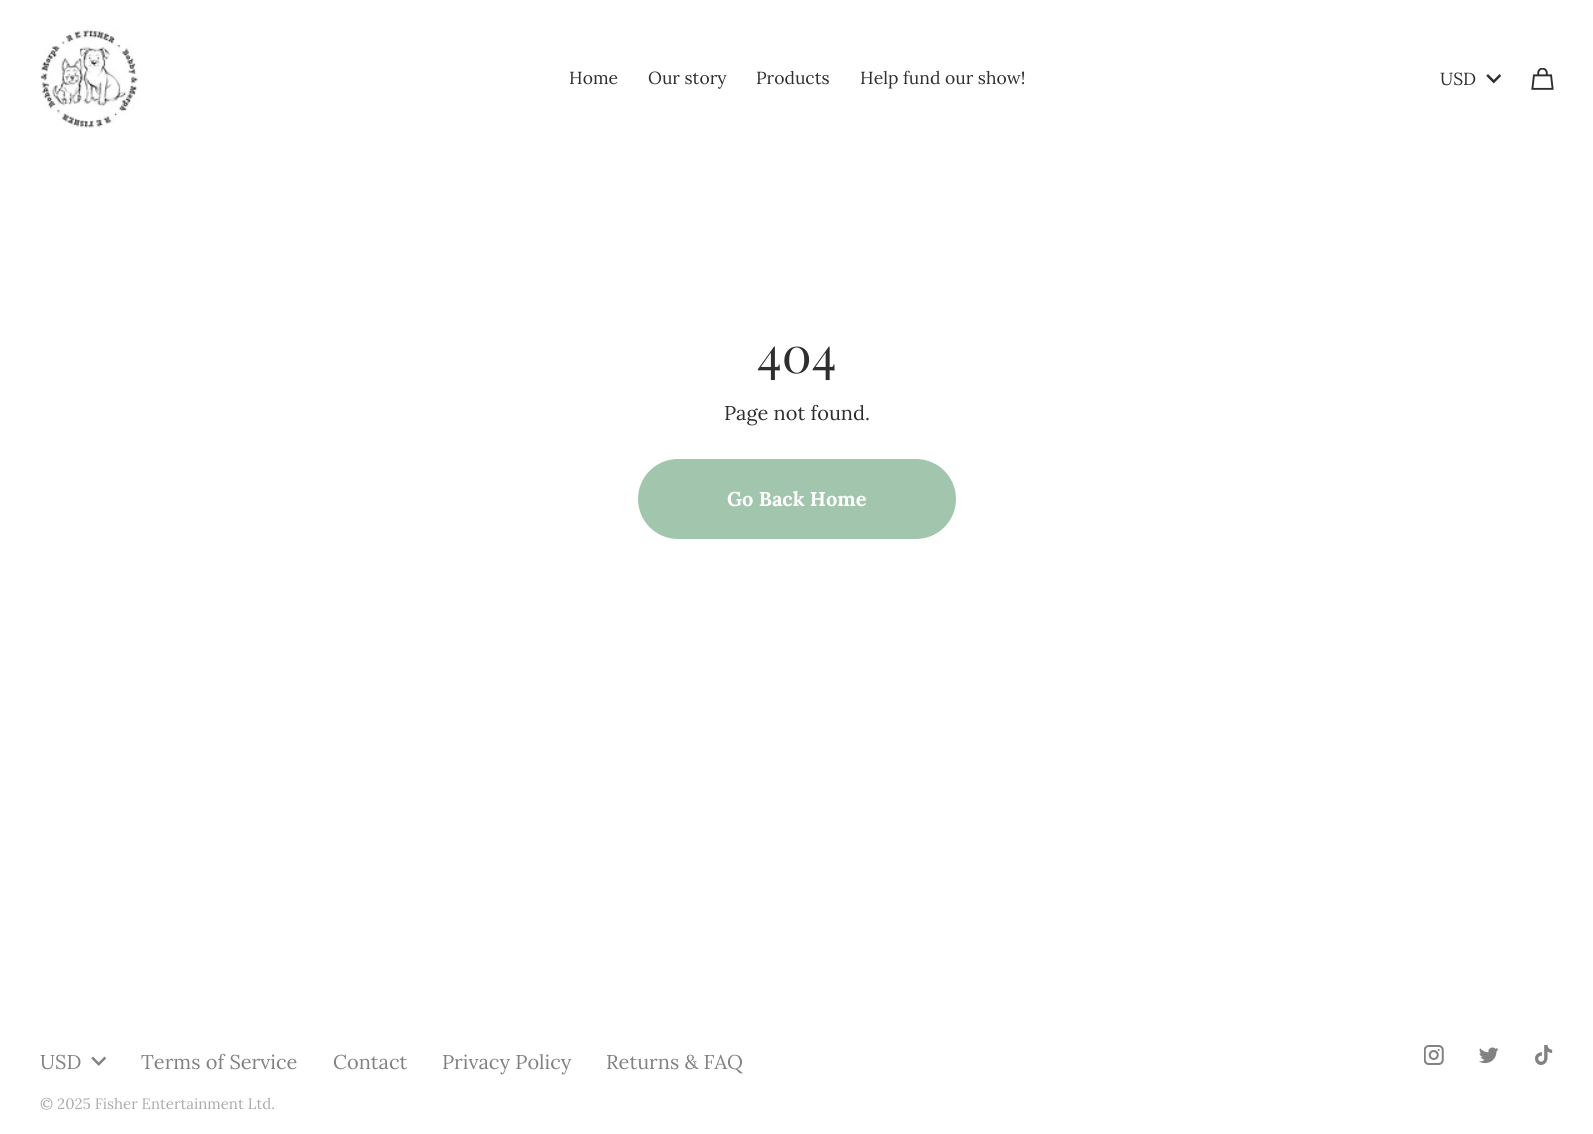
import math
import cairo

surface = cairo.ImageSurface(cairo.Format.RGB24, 1593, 1134)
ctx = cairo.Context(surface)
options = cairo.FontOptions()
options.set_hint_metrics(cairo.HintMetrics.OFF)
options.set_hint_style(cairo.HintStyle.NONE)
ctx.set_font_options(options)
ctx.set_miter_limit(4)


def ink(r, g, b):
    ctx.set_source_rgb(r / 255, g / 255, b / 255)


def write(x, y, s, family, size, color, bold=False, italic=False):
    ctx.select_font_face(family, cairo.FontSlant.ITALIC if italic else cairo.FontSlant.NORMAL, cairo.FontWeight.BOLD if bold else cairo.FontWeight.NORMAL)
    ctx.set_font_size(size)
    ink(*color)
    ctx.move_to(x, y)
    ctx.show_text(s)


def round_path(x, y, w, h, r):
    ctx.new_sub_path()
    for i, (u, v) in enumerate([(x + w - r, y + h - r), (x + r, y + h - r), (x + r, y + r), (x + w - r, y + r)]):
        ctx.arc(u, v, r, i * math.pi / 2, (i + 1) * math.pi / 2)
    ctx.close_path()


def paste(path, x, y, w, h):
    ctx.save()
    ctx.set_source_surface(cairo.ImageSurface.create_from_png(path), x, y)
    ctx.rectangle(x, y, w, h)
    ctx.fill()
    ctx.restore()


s1 = dict(family="Lora", size=17.5, color=(46, 46, 46))
s2 = dict(family="Playfair Display", size=50, color=(46, 46, 46))
s3 = dict(family="Lora", size=20, color=(46, 46, 46))
s4 = dict(family="Lora", size=20, color=(255, 255, 255), bold=True)
s5 = dict(family="Lora", size=20, color=(130, 130, 130))
s6 = dict(family="Lora", size=15, color=(171, 171, 171))

ink(255, 255, 255)
ctx.paint()
paste("pic1.png", 40, 30, 98, 98)
write(569, 84, "Home", **s1)
write(648, 84, "Our story", **s1)
write(756, 84, "Products", **s1)
write(860, 84, "Help fund our show!", **s1)
write(1440, 85, "USD", **s1)
paste("pic2.png", 1486, 74, 15, 10)
paste("pic3.png", 1531, 68, 23, 22)
write(757, 373, "404", **s2)
write(724, 420, "Page not found.", **s3)
ink(161, 198, 173)
round_path(638, 459, 318, 80, 40)
ctx.fill()
write(727, 506, "Go Back Home", **s4)
write(40, 1069, "USD", **s5)
paste("pic4.png", 91, 1056, 15, 10)
write(141, 1069, "Terms of Service", **s5)
write(333, 1069, "Contact", **s5)
write(442, 1069, "Privacy Policy", **s5)
write(606, 1069, "Returns & FAQ", **s5)
paste("pic5.png", 1424, 1045, 20, 20)
paste("pic6.png", 1479, 1047, 20, 17)
paste("pic7.png", 1535, 1045, 18, 20)
write(40, 1109, "© 2025 Fisher Entertainment Ltd.", **s6)
surface.write_to_png("screenshot.png")
